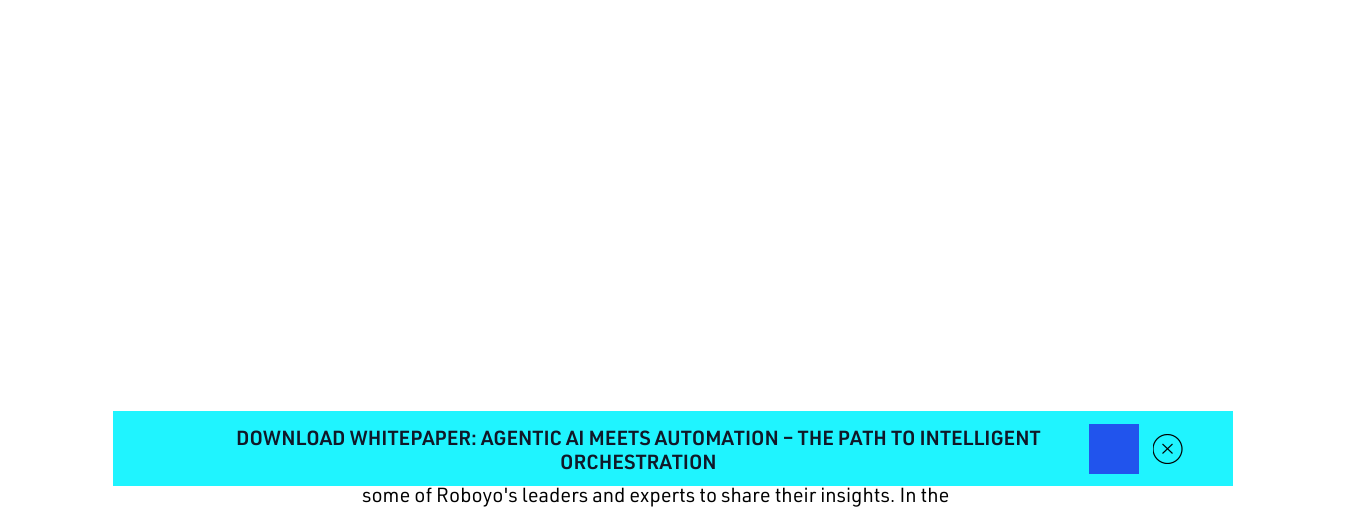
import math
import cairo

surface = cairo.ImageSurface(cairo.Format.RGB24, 1345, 511)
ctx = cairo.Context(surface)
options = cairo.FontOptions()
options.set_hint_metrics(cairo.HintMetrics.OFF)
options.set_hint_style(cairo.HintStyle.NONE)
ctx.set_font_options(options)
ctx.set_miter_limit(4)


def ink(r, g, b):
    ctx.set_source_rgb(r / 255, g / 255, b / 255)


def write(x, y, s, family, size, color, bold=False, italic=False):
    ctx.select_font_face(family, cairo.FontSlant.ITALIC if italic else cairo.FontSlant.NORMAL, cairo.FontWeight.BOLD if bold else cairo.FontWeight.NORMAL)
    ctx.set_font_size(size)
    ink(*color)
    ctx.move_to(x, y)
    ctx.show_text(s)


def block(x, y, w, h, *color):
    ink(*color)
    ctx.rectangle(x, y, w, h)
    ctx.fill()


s1 = dict(family="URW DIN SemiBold", size=20, color=(16, 24, 40))
s2 = dict(family="URW DIN", size=20, color=(0, 0, 0))

ink(255, 255, 255)
ctx.paint()
block(113, 411, 1120, 75, 31, 244, 255)
write(236, 445, "DOWNLOAD WHITEPAPER: AGENTIC AI MEETS AUTOMATION – THE PATH TO INTELLIGENT", **s1)
write(560, 469, "ORCHESTRATION", **s1)
block(1089, 424, 50, 50, 33, 84, 237)
ctx.save()
ctx.rectangle(1153, 434, 30, 30)
ctx.clip()
ctx.arc(1167.5, 449, 14.5, 0, 2 * math.pi)
ink(0, 0, 0)
ctx.set_line_width(1.2)
ctx.stroke()
ctx.restore()
ctx.new_path()
ctx.move_to(1162.5, 444)
ctx.line_to(1172.5, 453.5)
ctx.move_to(1172.5, 444)
ctx.line_to(1162.5, 453.5)
ink(0, 0, 0)
ctx.set_line_width(1.2)
ctx.stroke()
write(362, 502, "some of Roboyo's leaders and experts to share their insights. In the", **s2)
surface.write_to_png("screenshot.png")
